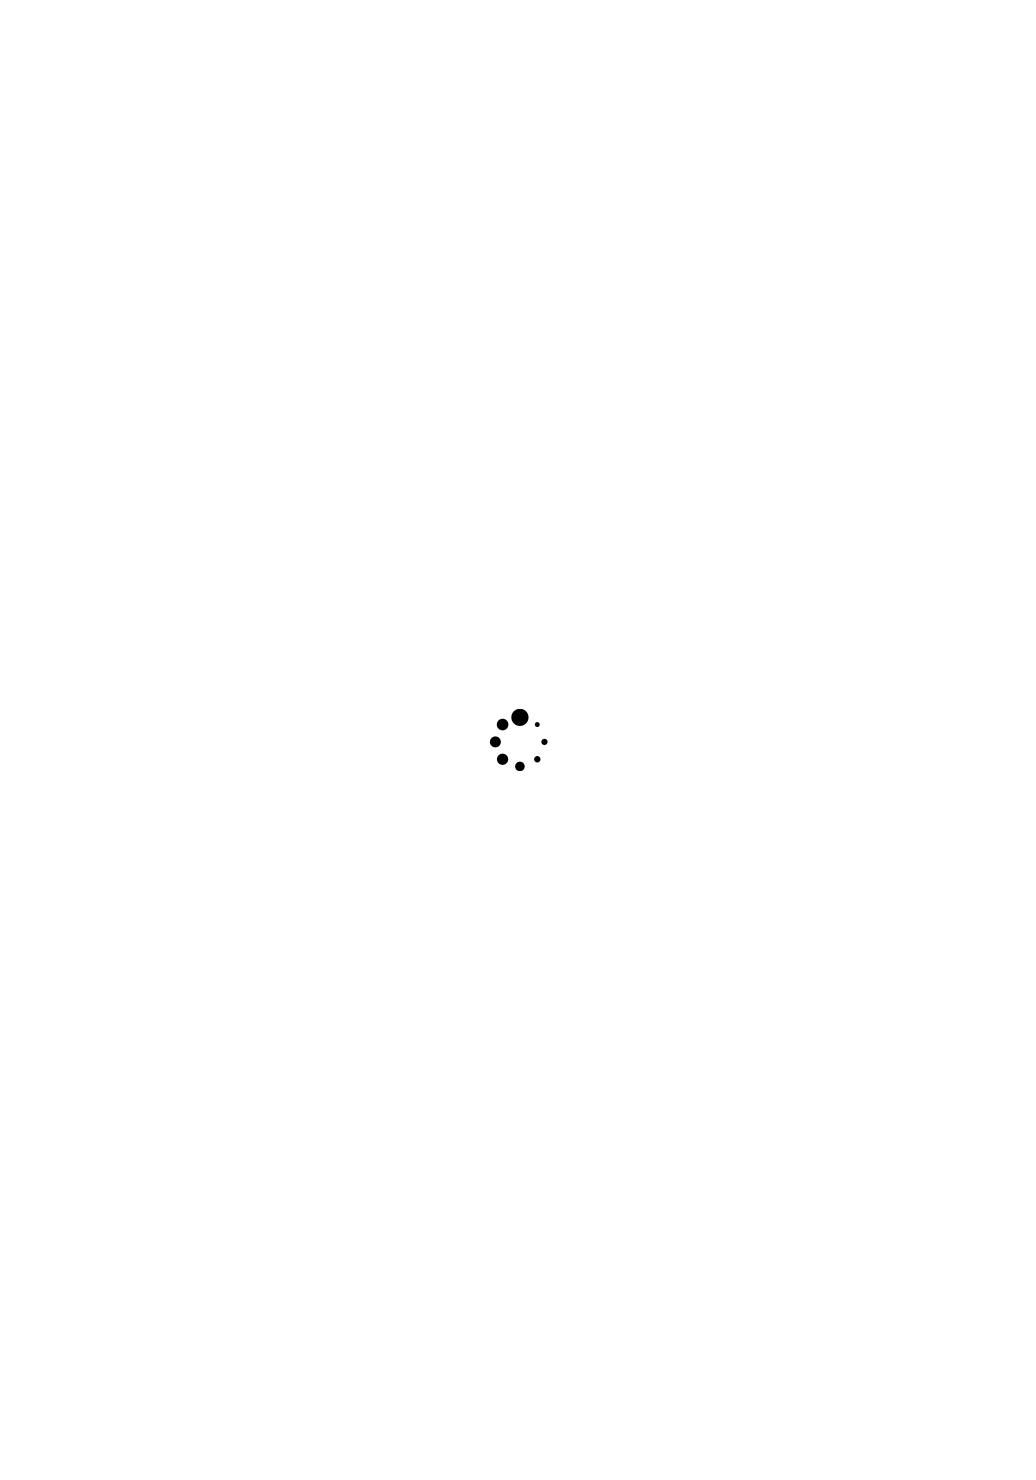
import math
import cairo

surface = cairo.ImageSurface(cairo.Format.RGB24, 1036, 1480)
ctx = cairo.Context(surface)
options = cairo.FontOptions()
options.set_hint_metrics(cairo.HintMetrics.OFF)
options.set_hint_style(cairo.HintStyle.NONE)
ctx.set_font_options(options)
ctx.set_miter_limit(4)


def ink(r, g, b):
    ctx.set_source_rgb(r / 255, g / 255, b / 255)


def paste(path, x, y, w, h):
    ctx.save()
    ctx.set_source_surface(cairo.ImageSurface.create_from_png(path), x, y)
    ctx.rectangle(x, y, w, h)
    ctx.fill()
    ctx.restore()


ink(255, 255, 255)
ctx.paint()
paste("pic1.png", 489, 709, 59, 62)
surface.write_to_png("screenshot.png")
